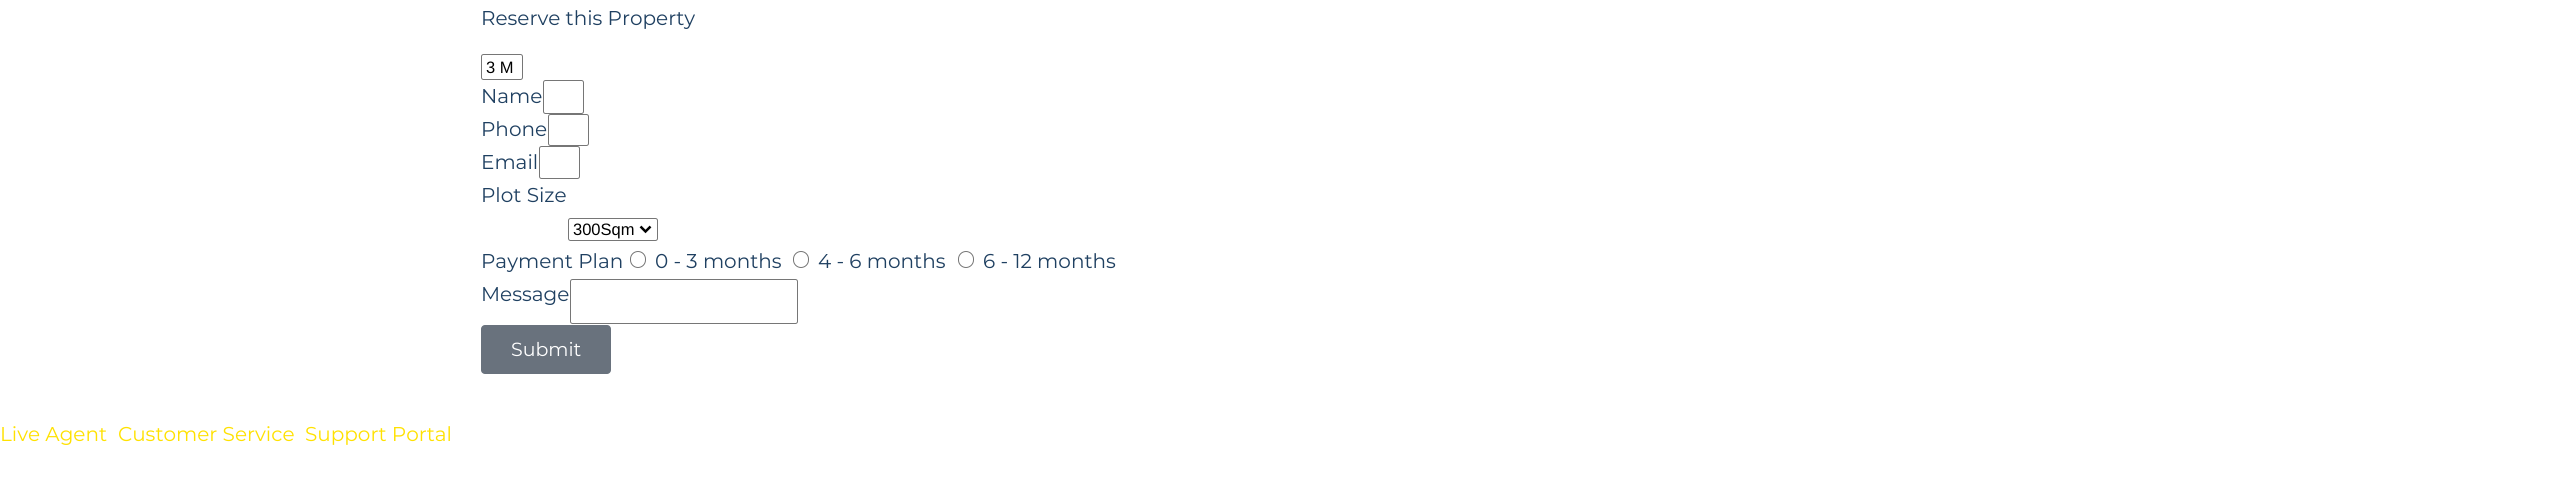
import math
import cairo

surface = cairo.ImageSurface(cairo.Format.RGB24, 2550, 484)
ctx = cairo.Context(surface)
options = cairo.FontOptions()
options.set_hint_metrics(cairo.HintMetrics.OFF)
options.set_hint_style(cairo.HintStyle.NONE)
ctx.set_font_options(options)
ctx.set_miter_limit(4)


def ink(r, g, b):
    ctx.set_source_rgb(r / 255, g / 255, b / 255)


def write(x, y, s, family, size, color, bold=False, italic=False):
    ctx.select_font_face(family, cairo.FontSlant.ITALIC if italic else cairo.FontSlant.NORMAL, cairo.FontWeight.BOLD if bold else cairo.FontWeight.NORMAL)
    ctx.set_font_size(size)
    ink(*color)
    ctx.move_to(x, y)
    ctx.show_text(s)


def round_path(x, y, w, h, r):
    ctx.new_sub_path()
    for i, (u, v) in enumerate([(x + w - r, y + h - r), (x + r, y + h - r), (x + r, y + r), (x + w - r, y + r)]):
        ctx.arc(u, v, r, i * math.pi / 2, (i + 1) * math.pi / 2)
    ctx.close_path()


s1 = dict(family="Montserrat", size=20, color=(31, 64, 97))
s2 = dict(family="Liberation Sans", size=16.5, color=(0, 0, 0))
s3 = dict(family="Montserrat", size=19, color=(255, 255, 255))
s4 = dict(family="Montserrat", size=20, color=(255, 225, 0))

ink(255, 255, 255)
ctx.paint()
write(481, 25, "Reserve this Property", **s1)
round_path(481.5, 54.5, 41, 25, 2)
ink(118, 118, 118)
ctx.set_line_width(1)
ctx.stroke()
write(486, 73, "3 M", **s2)
write(481, 103, "Name", **s1)
round_path(543.5, 80.5, 40, 33, 2)
ink(118, 118, 118)
ctx.stroke()
write(481, 136, "Phone", **s1)
round_path(548.5, 114.5, 40, 31, 2)
ink(118, 118, 118)
ctx.stroke()
write(481, 169, "Email", **s1)
round_path(539.5, 146.5, 40, 32, 2)
ink(118, 118, 118)
ctx.stroke()
write(481, 202, "Plot Size", **s1)
round_path(568.5, 218.5, 89, 22, 2)
ink(118, 118, 118)
ctx.stroke()
ctx.new_path()
ctx.move_to(640.5, 226.5)
ctx.line_to(645.5, 231.5)
ctx.line_to(650.5, 226.5)
ink(0, 0, 0)
ctx.set_line_width(2.5)
ctx.stroke()
write(573, 235, "300Sqm", **s2)
write(481, 268, "Payment Plan", **s1)
round_path(630.5, 251.5, 15, 16, 7.5)
ink(118, 118, 118)
ctx.set_line_width(1)
ctx.stroke()
write(655, 268, "0 - 3 months", **s1)
round_path(793.5, 251.5, 15, 16, 7.5)
ink(118, 118, 118)
ctx.stroke()
write(818, 268, "4 - 6 months", **s1)
round_path(958.5, 251.5, 15, 16, 7.5)
ink(118, 118, 118)
ctx.stroke()
write(983, 268, "6 - 12 months", **s1)
write(481, 301, "Message", **s1)
round_path(570.5, 279.5, 227, 44, 2)
ink(118, 118, 118)
ctx.stroke()
ink(105, 114, 125)
round_path(481, 325, 130, 49, 4)
ctx.fill()
write(511, 356, "Submit", **s3)
write(0, 441, "Live Agent", **s4)
write(118, 441, "Customer Service", **s4)
write(305, 441, "Support Portal", **s4)
surface.write_to_png("screenshot.png")
